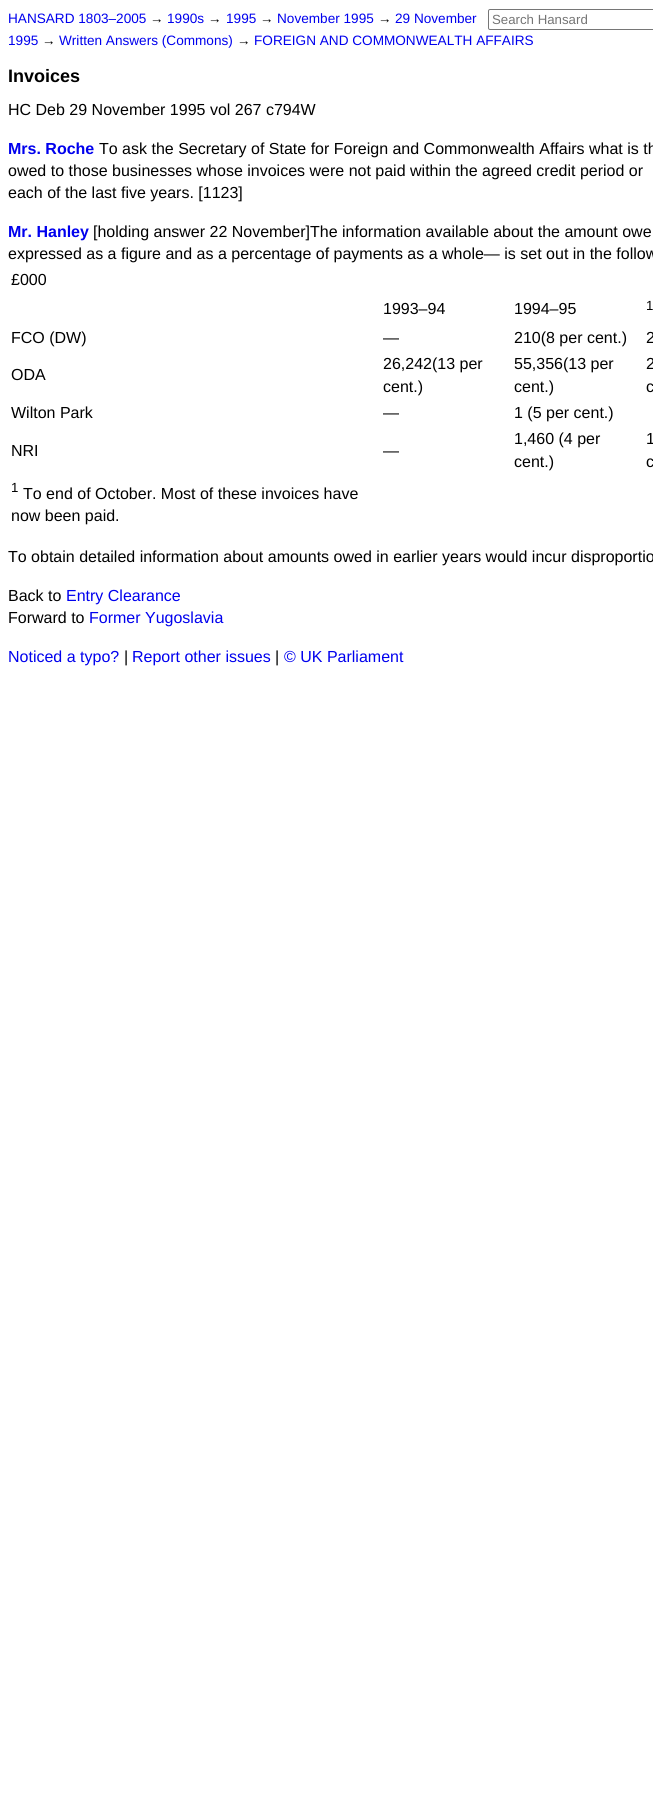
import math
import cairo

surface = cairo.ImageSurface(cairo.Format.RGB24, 653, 1796)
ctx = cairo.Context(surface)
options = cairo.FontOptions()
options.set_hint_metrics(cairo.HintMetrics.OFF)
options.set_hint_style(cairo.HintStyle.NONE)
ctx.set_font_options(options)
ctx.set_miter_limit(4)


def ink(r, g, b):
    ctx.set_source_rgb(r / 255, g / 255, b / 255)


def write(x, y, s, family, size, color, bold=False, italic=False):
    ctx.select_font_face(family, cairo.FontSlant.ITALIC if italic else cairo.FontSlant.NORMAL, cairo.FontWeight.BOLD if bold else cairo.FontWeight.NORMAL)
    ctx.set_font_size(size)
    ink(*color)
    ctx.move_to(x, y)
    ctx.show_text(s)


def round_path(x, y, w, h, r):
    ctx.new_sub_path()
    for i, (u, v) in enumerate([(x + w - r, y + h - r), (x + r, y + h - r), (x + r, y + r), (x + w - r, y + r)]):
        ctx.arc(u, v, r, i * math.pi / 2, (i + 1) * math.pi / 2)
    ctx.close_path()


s1 = dict(family="Liberation Sans", size=13.6, color=(0, 0, 238))
s2 = dict(family="Liberation Sans", size=13.6, color=(0, 0, 0))
s3 = dict(family="Liberation Sans", size=13.25, color=(117, 117, 117))
s4 = dict(family="Liberation Sans", size=18, color=(0, 0, 0), bold=True)
s5 = dict(family="Liberation Sans", size=16, color=(0, 0, 0))
s6 = dict(family="Liberation Sans", size=16, color=(0, 0, 238), bold=True)
s7 = dict(family="Liberation Sans", size=13.25, color=(0, 0, 0))
s8 = dict(family="Liberation Sans", size=16, color=(0, 0, 238))

ink(255, 255, 255)
ctx.paint()
write(8, 23, "HANSARD 1803–2005", **s1)
write(150, 23, "→", **s2)
write(167, 23, "1990s", **s1)
write(208, 23, "→", **s2)
write(226, 23, "1995", **s1)
write(260, 23, "→", **s2)
write(277, 23, "November 1995", **s1)
write(378, 23, "→", **s2)
write(395, 23, "29 November", **s1)
write(8, 45, "1995", **s1)
write(42, 45, "→", **s2)
write(59, 45, "Written Answers (Commons)", **s1)
write(237, 45, "→", **s2)
write(254, 45, "FOREIGN AND COMMONWEALTH AFFAIRS", **s1)
round_path(488.5, 9.5, 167, 20, 1.5)
ink(118, 118, 118)
ctx.set_line_width(1)
ctx.stroke()
write(492, 24, "Search Hansard", **s3)
write(8, 82, "Invoices", **s4)
write(8, 115, "HC Deb 29 November 1995 vol 267 c794W", **s5)
write(8, 154, "Mrs. Roche", **s6)
write(99, 154, "To ask the Secretary of State for Foreign and Commonwealth Affairs what is th", **s5)
write(8, 176, "owed to those businesses whose invoices were not paid within the agreed credit period or", **s5)
write(8, 198, "each of the last five years. [1123]", **s5)
write(8, 237, "Mr. Hanley", **s6)
write(93, 237, "[holding answer 22 November]The information available about the amount owe", **s5)
write(8, 259, "expressed as a figure and as a percentage of payments as a whole— is set out in the follow", **s5)
write(11, 285, "£000", **s5)
write(383, 314, "1993–94", **s5)
write(514, 314, "1994–95", **s5)
write(646, 310, "1", **s7)
write(11, 343, "FCO (DW)", **s5)
write(383, 343, "—", **s5)
write(514, 343, "210(8 per cent.)", **s5)
write(646, 343, "2", **s5)
write(11, 380, "ODA", **s5)
write(383, 369, "26,242(13 per", **s5)
write(383, 392, "cent.)", **s5)
write(514, 369, "55,356(13 per", **s5)
write(514, 392, "cent.)", **s5)
write(646, 369, "2", **s5)
write(646, 392, "c", **s5)
write(11, 418, "Wilton Park", **s5)
write(383, 418, "—", **s5)
write(514, 418, "1 (5 per cent.)", **s5)
write(11, 456, "NRI", **s5)
write(383, 456, "—", **s5)
write(514, 444, "1,460 (4 per", **s5)
write(514, 467, "cent.)", **s5)
write(646, 444, "1", **s5)
write(646, 467, "c", **s5)
write(11, 492, "1", **s7)
write(23, 499, "To end of October. Most of these invoices have", **s5)
write(11, 521, "now been paid.", **s5)
write(8, 562, "To obtain detailed information about amounts owed in earlier years would incur disproportio", **s5)
write(8, 601, "Back to", **s5)
write(66, 601, "Entry Clearance", **s8)
write(8, 623, "Forward to", **s5)
write(89, 623, "Former Yugoslavia", **s8)
write(8, 662, "Noticed a typo?", **s8)
write(124, 662, "|", **s5)
write(132, 662, "Report other issues", **s8)
write(275, 662, "|", **s5)
write(284, 662, "© UK Parliament", **s8)
surface.write_to_png("screenshot.png")
